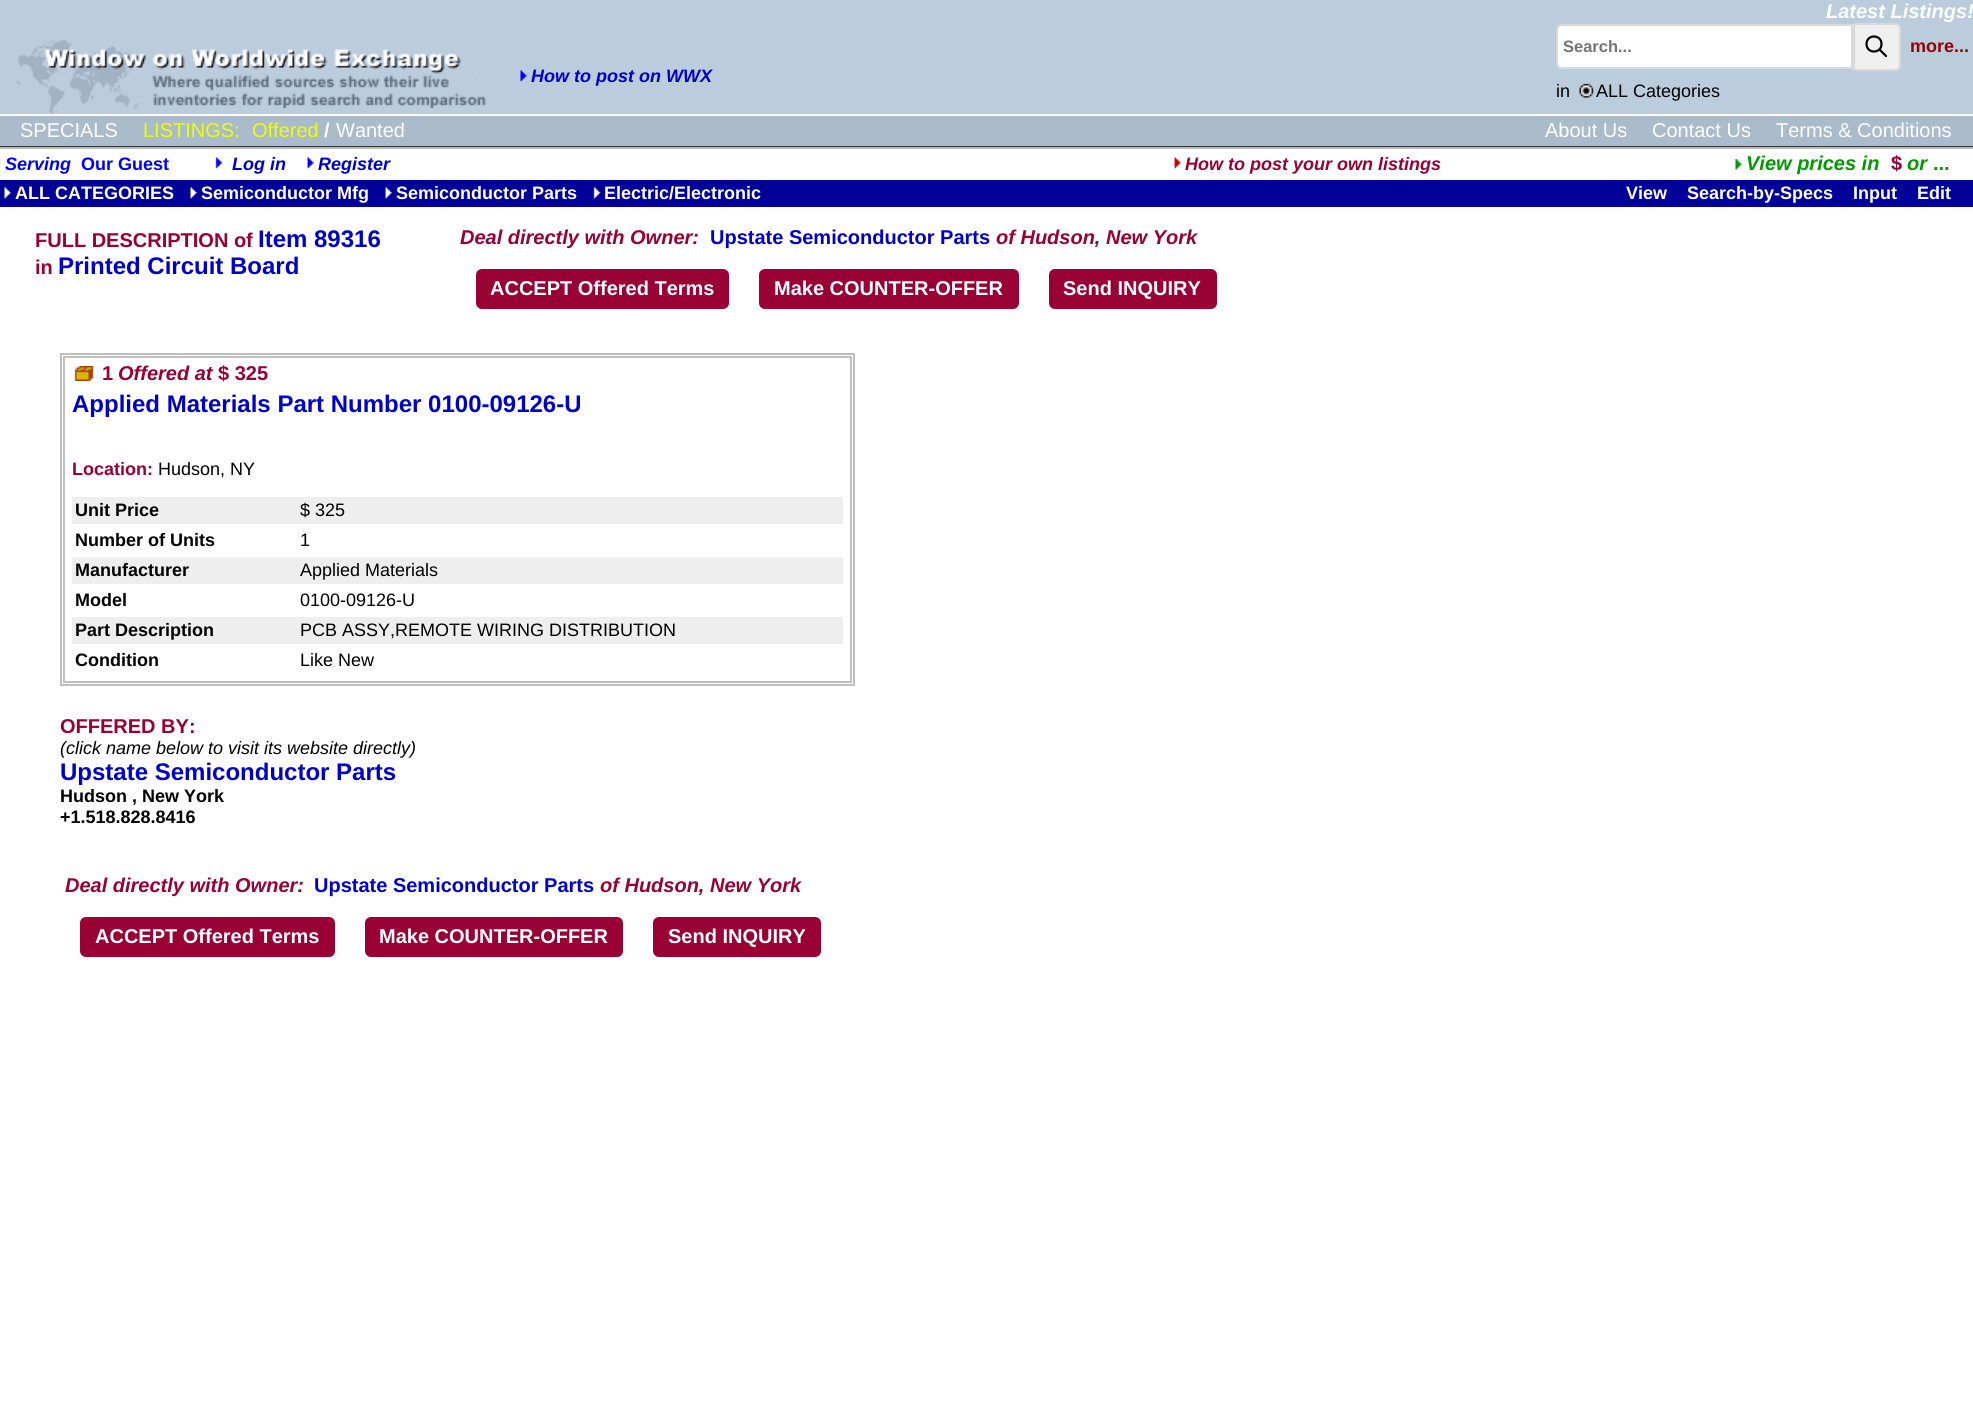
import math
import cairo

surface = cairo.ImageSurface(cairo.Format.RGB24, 1973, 1418)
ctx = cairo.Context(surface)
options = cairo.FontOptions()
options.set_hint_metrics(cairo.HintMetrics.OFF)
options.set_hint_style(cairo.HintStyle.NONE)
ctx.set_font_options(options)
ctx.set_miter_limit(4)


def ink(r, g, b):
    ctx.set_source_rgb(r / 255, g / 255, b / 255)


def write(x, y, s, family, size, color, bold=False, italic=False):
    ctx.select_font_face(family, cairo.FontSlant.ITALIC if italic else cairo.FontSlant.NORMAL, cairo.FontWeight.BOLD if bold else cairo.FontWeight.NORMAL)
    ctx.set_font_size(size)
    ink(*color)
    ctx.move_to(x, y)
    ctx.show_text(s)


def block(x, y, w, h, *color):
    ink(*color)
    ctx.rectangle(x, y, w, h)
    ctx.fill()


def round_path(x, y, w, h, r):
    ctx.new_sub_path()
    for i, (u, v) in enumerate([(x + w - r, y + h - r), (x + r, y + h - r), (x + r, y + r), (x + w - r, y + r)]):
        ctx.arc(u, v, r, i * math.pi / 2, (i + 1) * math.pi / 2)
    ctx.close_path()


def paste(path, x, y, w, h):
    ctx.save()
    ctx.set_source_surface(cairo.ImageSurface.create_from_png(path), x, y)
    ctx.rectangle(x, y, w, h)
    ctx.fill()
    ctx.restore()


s1 = dict(family="Liberation Sans", size=20, color=(255, 255, 255), bold=True, italic=True)
s2 = dict(family="Liberation Sans", size=18, color=(0, 0, 204), bold=True, italic=True)
s3 = dict(family="Liberation Sans", size=16.5, color=(117, 117, 117), bold=True)
s4 = dict(family="Liberation Sans", size=18, color=(153, 0, 0), bold=True)
s5 = dict(family="Liberation Sans", size=18, color=(0, 0, 0))
s6 = dict(family="Liberation Sans", size=20, color=(255, 255, 255))
s7 = dict(family="Liberation Sans", size=20, color=(238, 255, 0))
s8 = dict(family="Liberation Sans", size=20, color=(255, 255, 255), bold=True)
s9 = dict(family="Liberation Sans", size=18, color=(0, 0, 255), bold=True, italic=True)
s10 = dict(family="Liberation Sans", size=18, color=(0, 0, 255), bold=True)
s11 = dict(family="Liberation Sans", size=18, color=(153, 0, 51), bold=True, italic=True)
s12 = dict(family="Liberation Sans", size=20, color=(0, 153, 0), bold=True, italic=True)
s13 = dict(family="Liberation Sans", size=20, color=(153, 0, 51), bold=True)
s14 = dict(family="Liberation Sans", size=20, color=(0, 153, 0), bold=True)
s15 = dict(family="Liberation Sans", size=18, color=(255, 255, 255), bold=True)
s16 = dict(family="Liberation Sans", size=24, color=(0, 0, 204), bold=True)
s17 = dict(family="Liberation Sans", size=20, color=(153, 0, 51), bold=True, italic=True)
s18 = dict(family="Liberation Sans", size=20, color=(0, 0, 204), bold=True)
s19 = dict(family="Liberation Sans", size=18, color=(153, 0, 51), bold=True)
s20 = dict(family="Liberation Sans", size=18, color=(0, 0, 0), bold=True)
s21 = dict(family="Liberation Sans", size=18, color=(0, 0, 0), italic=True)

ink(255, 255, 255)
ctx.paint()
block(0, 0, 1973, 114, 187, 204, 221)
write(1826, 18, "Latest Listings!", **s1)
paste("pic1.png", 15, 40, 472, 74)
paste("pic2.png", 520, 70, 7, 12)
write(531, 82, "How to post on WWX", **s2)
ink(255, 255, 255)
ctx.new_path()
ctx.move_to(1562, 25)
ctx.line_to(1852, 25)
ctx.line_to(1852, 68)
ctx.line_to(1562, 68)
ctx.curve_to(1559, 68, 1557, 66, 1557, 63)
ctx.line_to(1557, 30)
ctx.curve_to(1557, 27, 1559, 25, 1562, 25)
ctx.close_path()
ctx.fill_preserve()
ink(218, 218, 218)
ctx.stroke()
write(1563, 52, "Search...", **s3)
ink(239, 239, 239)
ctx.new_path()
ctx.move_to(1854, 24)
ctx.line_to(1895, 24)
ctx.curve_to(1898, 24, 1900, 26, 1900, 29)
ctx.line_to(1900, 65)
ctx.curve_to(1900, 68, 1898, 70, 1895, 70)
ctx.line_to(1854, 70)
ctx.close_path()
ctx.fill_preserve()
ink(218, 218, 218)
ctx.stroke()
ctx.new_path()
ctx.move_to(1886, 56)
ctx.line_to(1879.5, 49.5)
ctx.move_to(1881.5, 44)
ctx.curve_to(1881.5, 54, 1866.5, 54, 1866.5, 44)
ctx.curve_to(1866.5, 34, 1881.5, 34, 1881.5, 44)
ctx.close_path()
ink(0, 0, 0)
ctx.set_line_width(2.2)
ctx.set_line_cap(cairo.LineCap.ROUND)
ctx.set_line_join(cairo.LineJoin.ROUND)
ctx.stroke()
write(1910, 52, "more...", **s4)
write(1556, 97, "in", **s5)
paste("pic3.png", 1579, 83, 15, 15)
write(1596, 97, "ALL Categories", **s5)
block(0, 116, 1973, 30, 170, 187, 204)
write(20, 137, "SPECIALS", **s6)
write(143, 137, "LISTINGS:", **s7)
write(252, 137, "Offered", **s7)
write(324, 137, "/", **s8)
write(336, 137, "Wanted", **s6)
write(1545, 137, "About Us", **s6)
write(1652, 137, "Contact Us", **s6)
write(1776, 137, "Terms & Conditions", **s6)
block(0, 146, 1973, 1, 51, 51, 51)
block(0, 147, 1973, 2, 187, 187, 187)
write(5, 170, "Serving", **s9)
write(81, 170, "Our Guest", **s10)
paste("pic4.png", 215, 157, 8, 12)
write(232, 170, "Log in", **s2)
paste("pic5.png", 307, 157, 7, 12)
write(318, 170, "Register", **s2)
paste("pic6.png", 1174, 157, 7, 12)
write(1185, 170, "How to post your own listings", **s11)
paste("pic7.png", 1735, 159, 7, 11)
write(1746, 170, "View prices in", **s12)
write(1891, 170, "$", **s13)
write(1907, 170, "or", **s12)
write(1933, 170, "...", **s14)
block(0, 180, 1973, 27, 0, 0, 153)
paste("pic8.png", 4, 187, 7, 12)
write(15, 199, "ALL CATEGORIES", **s15)
paste("pic8.png", 190, 187, 7, 12)
write(201, 199, "Semiconductor Mfg", **s15)
paste("pic9.png", 385, 187, 7, 12)
write(396, 199, "Semiconductor Parts", **s15)
paste("pic10.png", 593, 187, 8, 12)
write(604, 199, "Electric/Electronic", **s15)
write(1626, 199, "View", **s15)
write(1687, 199, "Search-by-Specs", **s15)
write(1853, 199, "Input", **s15)
write(1917, 199, "Edit", **s15)
write(35, 247, "FULL DESCRIPTION of", **s13)
write(258, 247, "Item 89316", **s16)
write(35, 274, "in", **s13)
write(58, 274, "Printed Circuit Board", **s16)
write(460, 244, "Deal directly with Owner:", **s17)
write(710, 244, "Upstate Semiconductor Parts", **s18)
write(996, 244, "of Hudson, New York", **s17)
round_path(476, 269, 253, 40, 6)
ctx.fill()
write(490, 295, "ACCEPT Offered Terms", **s8)
ink(153, 0, 51)
round_path(759, 269, 260, 40, 6)
ctx.fill()
write(774, 295, "Make COUNTER-OFFER", **s8)
ink(153, 0, 51)
round_path(1049, 269, 168, 40, 6)
ctx.fill()
write(1063, 295, "Send INQUIRY", **s8)
ctx.rectangle(61, 354, 793, 331)
ink(192, 192, 192)
ctx.set_line_width(2)
ctx.set_line_cap(cairo.LineCap.BUTT)
ctx.set_line_join(cairo.LineJoin.MITER)
ctx.stroke()
ctx.rectangle(64, 357, 787, 325)
ctx.stroke()
paste("pic11.png", 74, 366, 20, 15)
write(102, 380, "1", **s13)
write(118, 380, "Offered at", **s17)
write(218, 380, "$ 325", **s13)
write(72, 412, "Applied Materials Part Number 0100-09126-U", **s16)
write(72, 475, "Location:", **s19)
write(158, 475, "Hudson, NY", **s5)
block(72, 497, 771, 27, 238, 238, 238)
write(75, 516, "Unit Price", **s20)
write(300, 516, "$ 325", **s5)
write(75, 546, "Number of Units", **s20)
write(300, 546, "1", **s5)
block(72, 557, 771, 27, 238, 238, 238)
write(75, 576, "Manufacturer", **s20)
write(300, 576, "Applied Materials", **s5)
write(75, 606, "Model", **s20)
write(300, 606, "0100-09126-U", **s5)
block(72, 617, 771, 27, 238, 238, 238)
write(75, 636, "Part Description", **s20)
write(300, 636, "PCB ASSY,REMOTE WIRING DISTRIBUTION", **s5)
write(75, 666, "Condition", **s20)
write(300, 666, "Like New", **s5)
write(60, 733, "OFFERED BY:", **s13)
write(60, 754, "(click name below to visit its website directly)", **s21)
write(60, 780, "Upstate Semiconductor Parts", **s16)
write(60, 802, "Hudson , New York", **s20)
write(60, 823, "+1.518.828.8416", **s20)
write(65, 892, "Deal directly with Owner:", **s17)
write(314, 892, "Upstate Semiconductor Parts", **s18)
write(600, 892, "of Hudson, New York", **s17)
round_path(80, 917, 255, 40, 6)
ctx.fill()
write(95, 943, "ACCEPT Offered Terms", **s8)
ink(153, 0, 51)
round_path(365, 917, 258, 40, 6)
ctx.fill()
write(379, 943, "Make COUNTER-OFFER", **s8)
ink(153, 0, 51)
round_path(653, 917, 168, 40, 6)
ctx.fill()
write(668, 943, "Send INQUIRY", **s8)
surface.write_to_png("screenshot.png")
